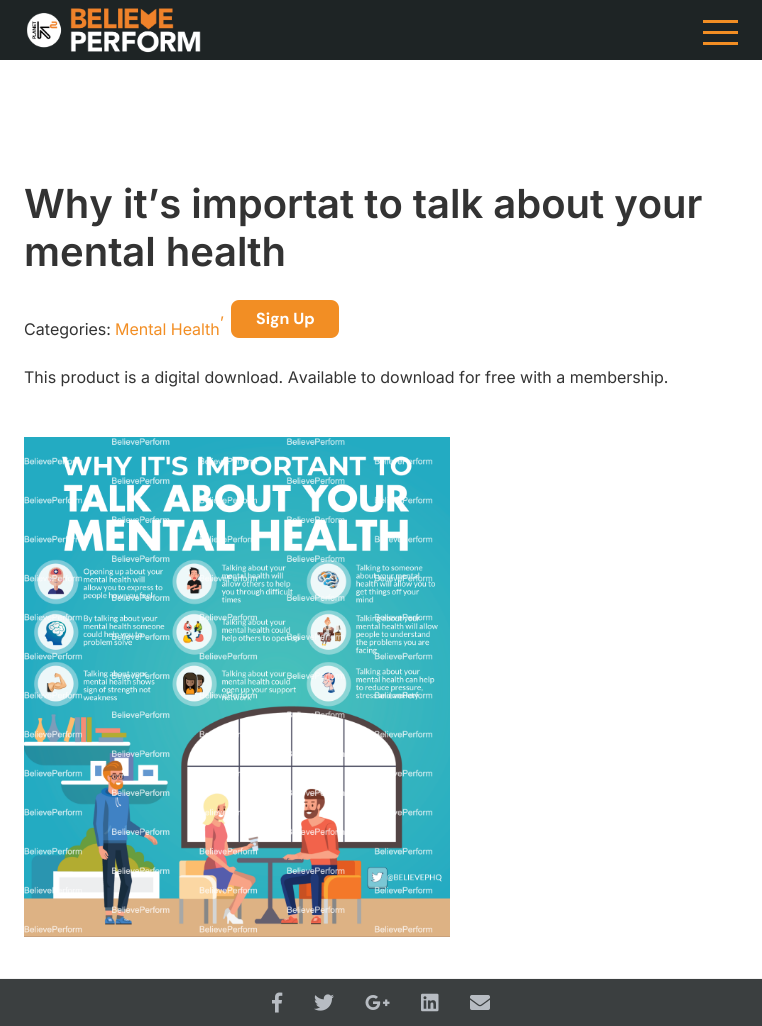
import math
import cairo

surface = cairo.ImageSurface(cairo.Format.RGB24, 762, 1026)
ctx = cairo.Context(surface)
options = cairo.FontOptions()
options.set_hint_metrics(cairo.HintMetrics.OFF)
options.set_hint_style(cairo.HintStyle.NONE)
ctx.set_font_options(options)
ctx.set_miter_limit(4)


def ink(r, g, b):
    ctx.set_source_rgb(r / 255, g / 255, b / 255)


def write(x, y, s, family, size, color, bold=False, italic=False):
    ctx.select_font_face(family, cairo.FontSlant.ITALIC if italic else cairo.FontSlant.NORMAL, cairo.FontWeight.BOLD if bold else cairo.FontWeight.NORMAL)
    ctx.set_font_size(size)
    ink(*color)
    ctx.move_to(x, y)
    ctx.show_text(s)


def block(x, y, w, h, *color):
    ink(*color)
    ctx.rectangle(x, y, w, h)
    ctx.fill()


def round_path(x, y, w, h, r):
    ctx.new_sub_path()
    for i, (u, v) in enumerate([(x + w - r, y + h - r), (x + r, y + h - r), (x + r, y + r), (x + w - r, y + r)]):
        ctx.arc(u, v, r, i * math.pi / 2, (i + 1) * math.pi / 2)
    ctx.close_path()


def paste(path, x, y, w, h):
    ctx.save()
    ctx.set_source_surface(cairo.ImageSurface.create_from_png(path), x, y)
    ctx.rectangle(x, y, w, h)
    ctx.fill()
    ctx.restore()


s1 = dict(family="Inter SemiBold", size=40, color=(51, 51, 51))
s2 = dict(family="Inter", size=16, color=(51, 51, 51))
s3 = dict(family="Inter", size=16, color=(242, 142, 36))
s4 = dict(family="DM Sans", size=16, color=(255, 255, 255), bold=True)

ink(255, 255, 255)
ctx.paint()
block(0, 0, 762, 60, 30, 36, 37)
paste("pic1.png", 27, 8, 174, 45)
block(703, 20, 35, 3, 242, 142, 36)
block(703, 31, 35, 3, 242, 142, 36)
block(703, 42, 35, 3, 242, 142, 36)
write(24, 218, "Why it’s importat to talk about your", **s1)
write(24, 266, "mental health", **s1)
write(24, 335, "Categories:", **s2)
write(220, 318, ",", **s3)
write(115, 335, "Mental Health", **s3)
round_path(231, 300, 108, 38, 8)
ctx.fill()
write(256, 324, "Sign Up", **s4)
write(24, 383, "This product is a digital download. Available to download for free with a membership.", **s2)
paste("pic2.png", 24, 437, 426, 500)
block(0, 979, 762, 47, 59, 63, 64)
block(0, 978, 762, 1, 243, 243, 243)
paste("pic3.png", 272, 992, 11, 21)
paste("pic4.png", 314, 994, 20, 17)
paste("pic5.png", 365, 995, 25, 15)
paste("pic6.png", 421, 993, 18, 19)
paste("pic7.png", 470, 995, 20, 15)
surface.write_to_png("screenshot.png")
